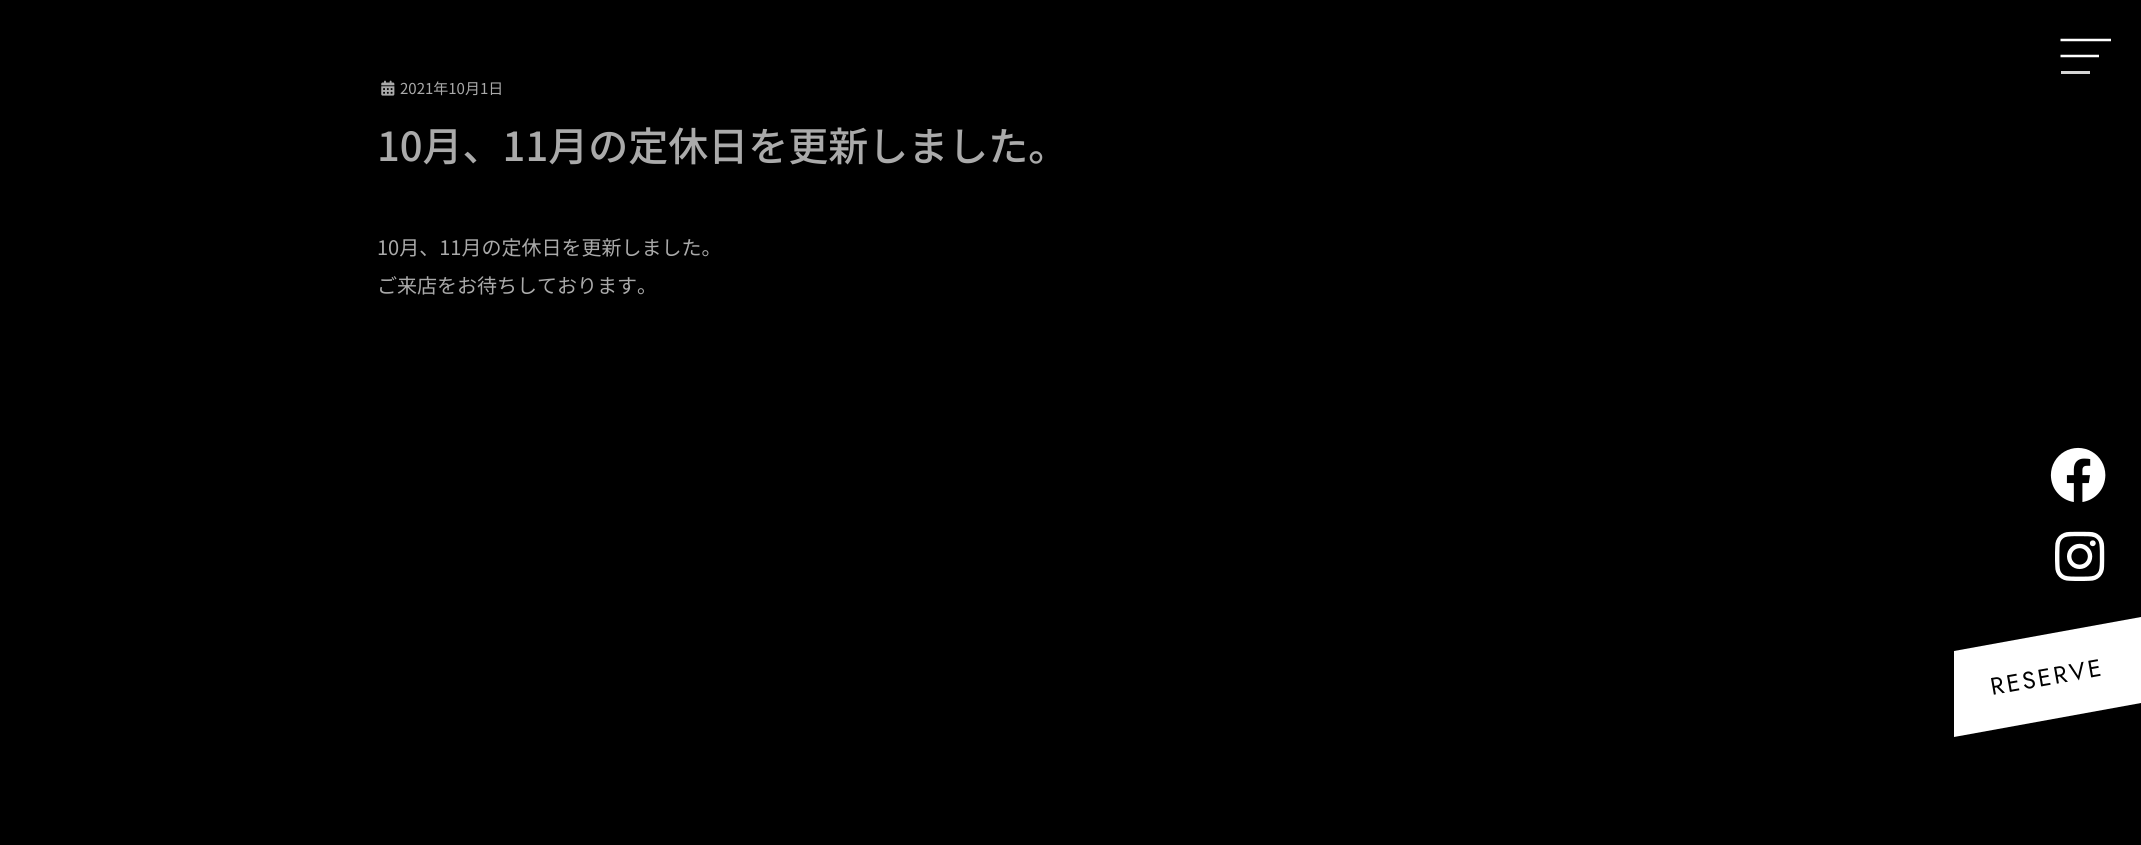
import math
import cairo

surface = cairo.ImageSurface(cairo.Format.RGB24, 2141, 845)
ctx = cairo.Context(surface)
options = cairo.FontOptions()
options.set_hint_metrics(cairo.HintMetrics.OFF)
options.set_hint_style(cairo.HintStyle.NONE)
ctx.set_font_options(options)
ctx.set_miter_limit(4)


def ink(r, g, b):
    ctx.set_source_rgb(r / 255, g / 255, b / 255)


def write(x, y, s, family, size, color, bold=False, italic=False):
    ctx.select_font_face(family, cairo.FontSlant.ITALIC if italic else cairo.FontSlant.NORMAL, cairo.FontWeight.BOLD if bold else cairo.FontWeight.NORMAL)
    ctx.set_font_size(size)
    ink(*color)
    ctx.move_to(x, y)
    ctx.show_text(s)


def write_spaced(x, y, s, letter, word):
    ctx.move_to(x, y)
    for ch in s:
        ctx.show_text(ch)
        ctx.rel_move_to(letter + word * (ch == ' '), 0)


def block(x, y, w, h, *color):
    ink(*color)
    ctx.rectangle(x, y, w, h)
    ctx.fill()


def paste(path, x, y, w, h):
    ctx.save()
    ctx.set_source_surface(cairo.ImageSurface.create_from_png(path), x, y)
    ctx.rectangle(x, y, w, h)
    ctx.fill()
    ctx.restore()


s1 = dict(family="Noto Sans JP", size=15, color=(170, 170, 170))
s2 = dict(family="Noto Sans JP Medium", size=40, color=(170, 170, 170))
s3 = dict(family="Noto Sans JP", size=20, color=(170, 170, 170))

ink(0, 0, 0)
ctx.paint()
ctx.new_path()
ctx.move_to(2060.5, 40)
ctx.line_to(2111, 40)
ctx.move_to(2060.5, 56)
ctx.line_to(2099, 56)
ink(255, 255, 255)
ctx.set_line_width(2.5)
ctx.stroke()
block(2061, 71, 29, 3, 213, 213, 213)
paste("pic1.png", 381, 80, 14, 16)
write(400, 94, "2021年10月1日", **s1)
write(377, 161, "10月、11月の定休日を更新しました。", **s2)
write(377, 255, "10月、11月の定休日を更新しました。", **s3)
write(377, 293, "ご来店をお待ちしております。", **s3)
paste("pic2.png", 2050, 447, 56, 55)
paste("pic3.png", 2055, 531, 50, 50)
ink(255, 255, 255)
ctx.new_path()
ctx.move_to(1954, 651)
ctx.line_to(2141, 617)
ctx.line_to(2141, 703)
ctx.line_to(1954, 737)
ctx.close_path()
ctx.fill()
ctx.select_font_face("Jost")
ctx.set_font_size(24)
ink(0, 0, 0)
ctx.save()
ctx.translate(1992, 695)
ctx.rotate(-10 * math.pi / 180)
write_spaced(0, 0, "RESERVE", 2.75, 0)
ctx.restore()
surface.write_to_png("screenshot.png")
